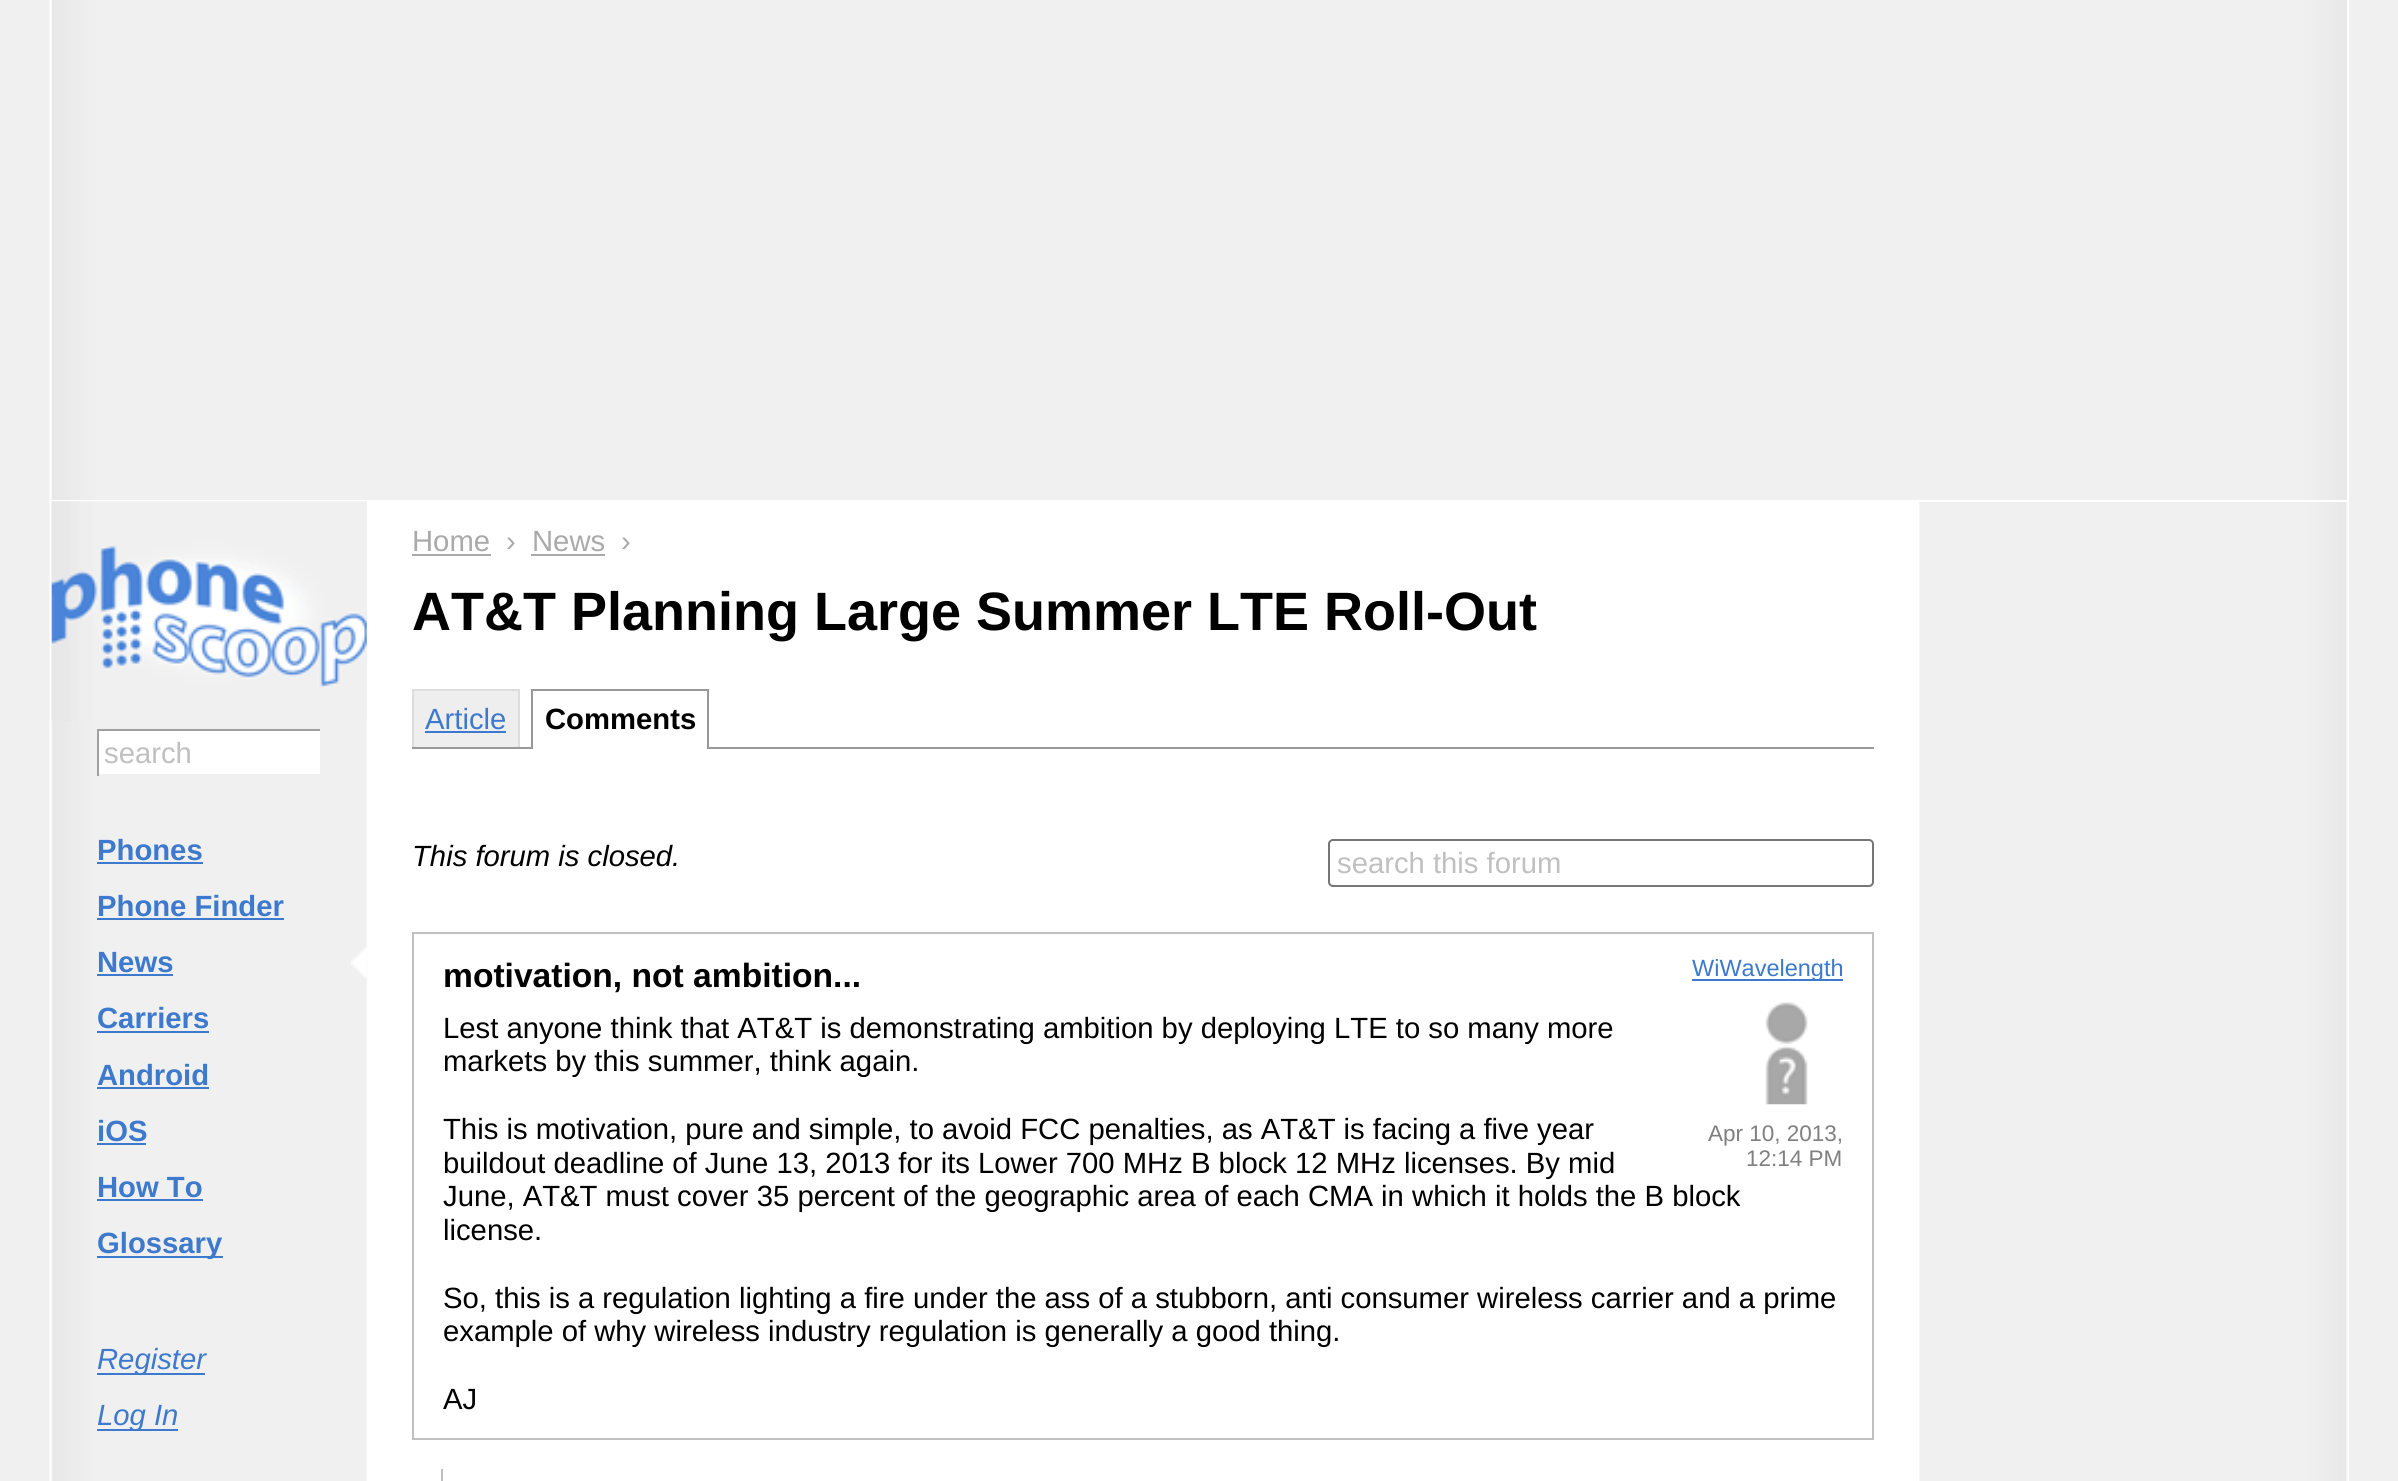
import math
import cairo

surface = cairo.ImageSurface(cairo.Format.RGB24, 2398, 1481)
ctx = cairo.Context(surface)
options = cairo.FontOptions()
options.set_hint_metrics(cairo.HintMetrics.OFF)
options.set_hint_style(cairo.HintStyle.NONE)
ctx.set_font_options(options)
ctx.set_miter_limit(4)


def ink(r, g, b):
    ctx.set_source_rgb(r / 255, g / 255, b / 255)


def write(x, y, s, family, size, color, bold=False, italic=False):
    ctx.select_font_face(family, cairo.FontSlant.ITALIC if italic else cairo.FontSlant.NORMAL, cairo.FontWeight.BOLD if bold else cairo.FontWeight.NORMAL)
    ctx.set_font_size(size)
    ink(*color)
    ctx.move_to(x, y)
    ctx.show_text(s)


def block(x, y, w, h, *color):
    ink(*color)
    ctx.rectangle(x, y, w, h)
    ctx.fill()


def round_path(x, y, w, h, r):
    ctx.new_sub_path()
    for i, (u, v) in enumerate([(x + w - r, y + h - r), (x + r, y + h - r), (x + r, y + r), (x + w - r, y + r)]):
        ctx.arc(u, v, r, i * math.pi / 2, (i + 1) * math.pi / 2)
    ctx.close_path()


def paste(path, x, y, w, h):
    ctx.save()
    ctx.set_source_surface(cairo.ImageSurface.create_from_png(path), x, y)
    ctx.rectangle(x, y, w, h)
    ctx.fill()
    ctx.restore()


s1 = dict(family="Arimo", size=29.25, color=(192, 192, 192))
s2 = dict(family="Arimo", size=29.25, color=(61, 121, 204), bold=True)
s3 = dict(family="Arimo", size=29.25, color=(61, 121, 204), italic=True)
s4 = dict(family="Arimo", size=29.25, color=(170, 170, 170))
s5 = dict(family="Arimo", size=54, color=(0, 0, 0), bold=True)
s6 = dict(family="Arimo", size=29.25, color=(61, 121, 204))
s7 = dict(family="Arimo", size=29.25, color=(0, 0, 0), bold=True)
s8 = dict(family="Arimo", size=29.25, color=(0, 0, 0), italic=True)
s9 = dict(family="Arimo", size=33.6, color=(0, 0, 0), bold=True)
s10 = dict(family="Arimo", size=23.5, color=(61, 121, 204))
s11 = dict(family="Arimo", size=22.5, color=(128, 128, 128))
s12 = dict(family="Arimo", size=29.25, color=(0, 0, 0))

ink(240, 240, 240)
ctx.paint()
paste("pic1.png", 49, 0, 2300, 1481)
paste("pic2.png", 52, 0, 2295, 500)
block(52, 500, 2295, 2, 255, 255, 255)
paste("pic3.png", 51, 501, 316, 220)
block(99, 731, 221, 43, 255, 255, 255)
block(97, 729, 225, 2, 160, 160, 160)
block(320, 729, 2, 2, 240, 240, 240)
block(97, 729, 2, 47, 160, 160, 160)
write(104, 763, "search", **s1)
write(97, 860, "Phones", **s2)
block(97, 862, 106, 2, 61, 121, 204)
write(97, 916, "Phone Finder", **s2)
block(97, 918, 187, 2, 61, 121, 204)
paste("pic4.png", 351, 947, 16, 31)
write(97, 972, "News", **s2)
block(97, 974, 76, 2, 61, 121, 204)
write(97, 1028, "Carriers", **s2)
block(97, 1031, 112, 2, 61, 121, 204)
write(97, 1085, "Android", **s2)
block(97, 1087, 112, 2, 61, 121, 204)
write(97, 1141, "iOS", **s2)
block(97, 1143, 49, 2, 61, 121, 204)
write(97, 1197, "How To", **s2)
block(97, 1199, 106, 2, 61, 121, 204)
block(97, 1256, 126, 2, 61, 121, 204)
write(97, 1253, "Glossary", **s2)
block(97, 1373, 108, 2, 61, 121, 204)
write(97, 1369, "Register", **s3)
block(97, 1429, 81, 2, 61, 121, 204)
write(97, 1425, "Log In", **s3)
block(1918, 502, 1, 979, 255, 255, 255)
write(412, 551, "Home", **s4)
block(412, 554, 79, 2, 170, 170, 170)
write(506, 551, "›", **s4)
write(532, 551, "News", **s4)
block(531, 554, 74, 2, 170, 170, 170)
write(621, 551, "›", **s4)
write(412, 630, "AT&T Planning Large Summer LTE Roll-Out", **s5)
block(414, 691, 104, 56, 238, 238, 238)
block(412, 689, 108, 2, 221, 221, 221)
block(518, 689, 2, 58, 221, 221, 221)
block(412, 689, 2, 58, 221, 221, 221)
write(425, 729, "Article", **s6)
block(425, 731, 81, 2, 61, 121, 204)
block(412, 747, 1462, 2, 153, 153, 153)
block(533, 747, 174, 2, 255, 255, 255)
block(531, 689, 178, 2, 153, 153, 153)
block(707, 689, 2, 60, 153, 153, 153)
block(531, 689, 2, 60, 153, 153, 153)
write(545, 729, "Comments", **s7)
write(412, 866, "This forum is closed.", **s8)
round_path(1329, 840, 544, 46, 4)
ink(118, 118, 118)
ctx.stroke()
write(1337, 873, "search this forum", **s1)
ctx.rectangle(413, 933, 1460, 506)
ctx.stroke()
write(443, 987, "motivation, not ambition...", **s9)
block(1692, 979, 151, 2, 61, 121, 204)
write(1692, 976, "WiWavelength", **s10)
paste("pic5.png", 1765, 1002, 43, 103)
write(1708, 1141, "Apr 10, 2013,", **s11)
write(1746, 1166, "12:14 PM", **s11)
write(443, 1038, "Lest anyone think that AT&T is demonstrating ambition by deploying LTE to so many more", **s12)
write(443, 1071, "markets by this summer, think again.", **s12)
write(443, 1139, "This is motivation, pure and simple, to avoid FCC penalties, as AT&T is facing a five year", **s12)
write(443, 1173, "buildout deadline of June 13, 2013 for its Lower 700 MHz B block 12 MHz licenses. By mid", **s12)
write(443, 1206, "June, AT&T must cover 35 percent of the geographic area of each CMA in which it holds the B block", **s12)
write(443, 1240, "license.", **s12)
write(443, 1308, "So, this is a regulation lighting a fire under the ass of a stubborn, anti consumer wireless carrier and a prime", **s12)
write(443, 1341, "example of why wireless industry regulation is generally a good thing.", **s12)
write(443, 1409, "AJ", **s12)
block(441, 1469, 2, 12, 192, 192, 192)
surface.write_to_png("screenshot.png")
